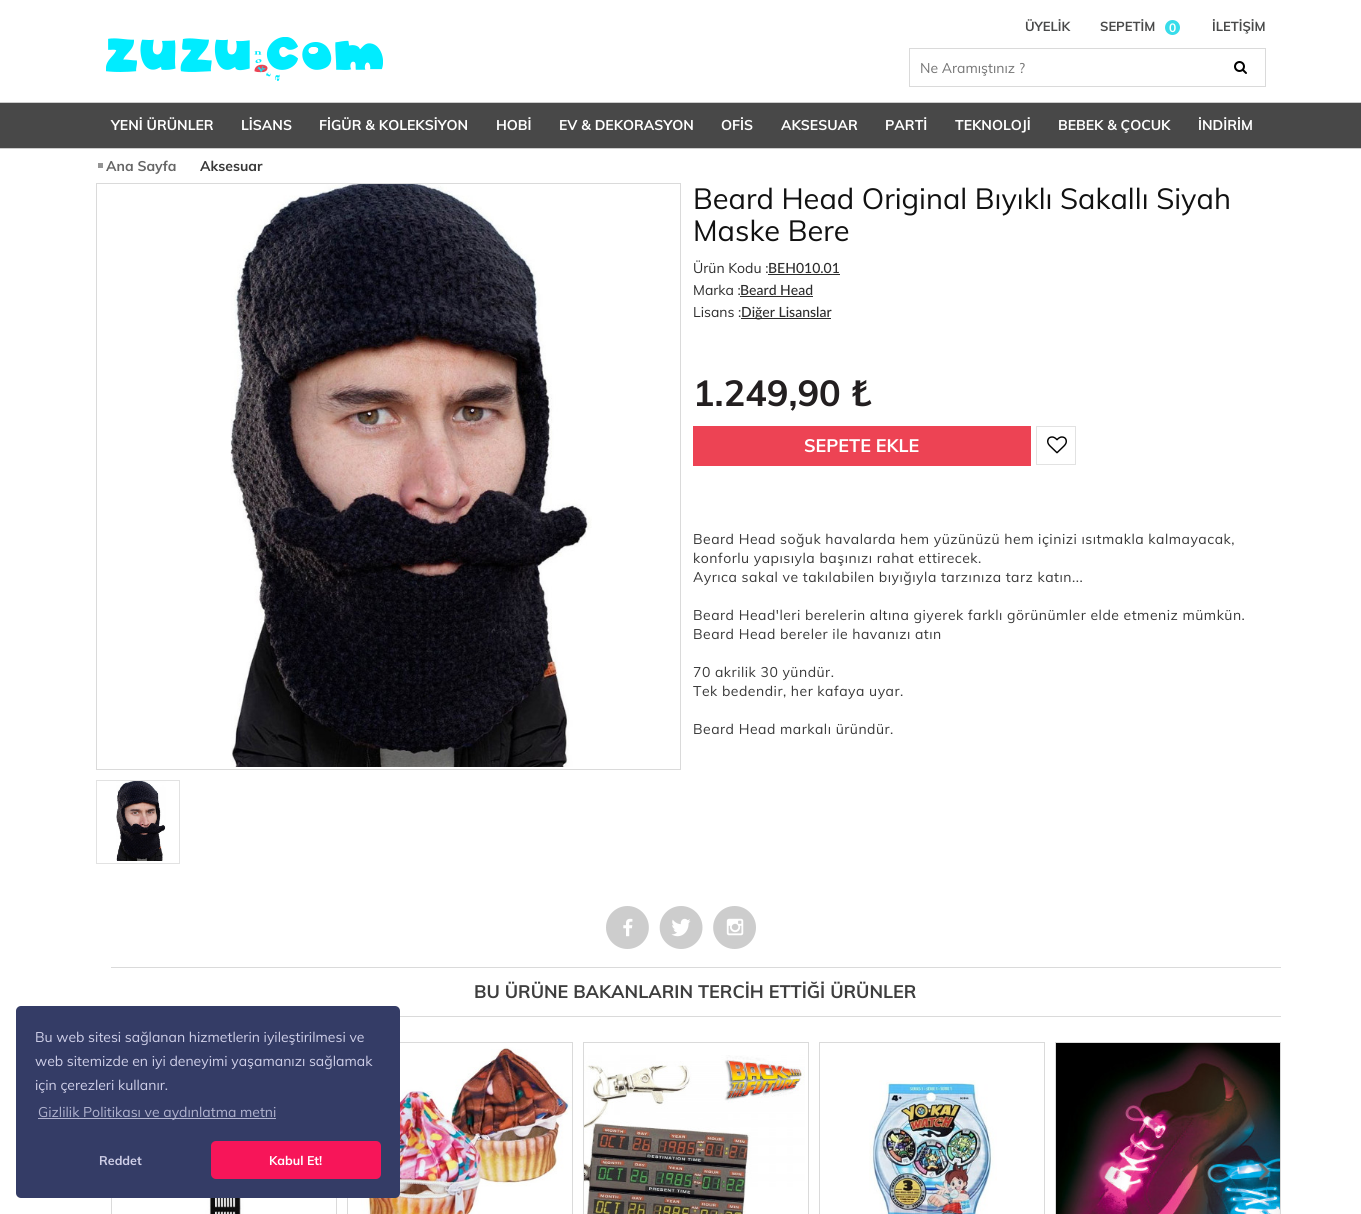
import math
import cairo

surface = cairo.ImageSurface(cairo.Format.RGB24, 1361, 1214)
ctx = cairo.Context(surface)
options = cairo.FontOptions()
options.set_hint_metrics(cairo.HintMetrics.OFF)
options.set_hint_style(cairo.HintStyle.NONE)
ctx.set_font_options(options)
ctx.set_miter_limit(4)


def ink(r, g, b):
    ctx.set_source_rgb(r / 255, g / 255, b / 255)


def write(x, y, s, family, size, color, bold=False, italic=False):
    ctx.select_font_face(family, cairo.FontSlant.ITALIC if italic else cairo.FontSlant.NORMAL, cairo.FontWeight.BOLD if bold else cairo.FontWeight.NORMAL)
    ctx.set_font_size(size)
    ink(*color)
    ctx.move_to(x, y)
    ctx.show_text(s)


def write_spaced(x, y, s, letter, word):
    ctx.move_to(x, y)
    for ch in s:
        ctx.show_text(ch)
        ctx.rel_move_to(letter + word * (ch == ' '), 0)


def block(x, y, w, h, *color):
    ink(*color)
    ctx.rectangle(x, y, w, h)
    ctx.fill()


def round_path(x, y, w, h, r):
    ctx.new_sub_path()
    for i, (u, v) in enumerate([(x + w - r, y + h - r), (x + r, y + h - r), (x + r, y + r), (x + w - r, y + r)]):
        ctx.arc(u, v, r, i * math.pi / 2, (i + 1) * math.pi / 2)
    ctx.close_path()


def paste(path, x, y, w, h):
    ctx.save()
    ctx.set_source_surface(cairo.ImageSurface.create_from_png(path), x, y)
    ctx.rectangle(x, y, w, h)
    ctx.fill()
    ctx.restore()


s1 = dict(family="Muli", size=13, color=(73, 74, 74), bold=True)
s2 = dict(family="Muli", size=12, color=(255, 255, 255), bold=True)
s3 = dict(family="Muli", size=14, color=(117, 117, 117))
s4 = dict(family="Muli", size=14, color=(255, 255, 255), bold=True)
s5 = dict(family="Muli", size=14, color=(102, 102, 102), bold=True)
s6 = dict(family="Muli", size=14, color=(56, 56, 56), bold=True)
s7 = dict(family="Muli", size=29, color=(17, 17, 17))
s8 = dict(family="Muli", size=14, color=(44, 44, 44))
s9 = dict(family="Lato Medium", size=14, color=(44, 44, 44))
s10 = dict(family="Muli", size=36, color=(35, 31, 32), bold=True)
s11 = dict(family="Muli", size=18, color=(255, 255, 255), bold=True)
s12 = dict(family="Muli", size=18, color=(62, 62, 62), bold=True)
s13 = dict(family="Muli", size=14, color=(207, 207, 232))
s14 = dict(family="Muli", size=14, color=(176, 178, 206))
s15 = dict(family="Muli", size=12.5, color=(207, 207, 232), bold=True)
s16 = dict(family="Muli", size=12.5, color=(255, 255, 255), bold=True)

ink(255, 255, 255)
ctx.paint()
paste("pic1.png", 106, 37, 277, 44)
write(1025, 31, "ÜYELİK", **s1)
write(1100, 31, "SEPETİM", **s1)
ink(56, 220, 234)
ctx.new_path()
ctx.arc(1172.5, 27.5, 7.5, 0, 2 * math.pi)
ctx.fill()
write(1169, 32, "0", **s2)
write(1212, 31, "İLETİŞİM", **s1)
ctx.rectangle(909.5, 48.5, 356, 38)
ink(218, 218, 218)
ctx.set_line_width(1)
ctx.stroke()
write(920, 73, "Ne Aramıştınız ?", **s3)
paste("pic2.png", 1234, 61, 13, 13)
block(0, 103, 1361, 45, 72, 72, 72)
block(0, 102, 1361, 1, 204, 204, 204)
block(0, 148, 1361, 1, 204, 204, 204)
write(111, 130, "YENİ ÜRÜNLER", **s4)
write(241, 130, "LİSANS", **s4)
write(319, 130, "FİGÜR & KOLEKSİYON", **s4)
write(496, 130, "HOBİ", **s4)
write(559, 130, "EV & DEKORASYON", **s4)
write(721, 130, "OFİS", **s4)
write(781, 130, "AKSESUAR", **s4)
write(885, 130, "PARTİ", **s4)
write(955, 130, "TEKNOLOJİ", **s4)
write(1058, 130, "BEBEK & ÇOCUK", **s4)
write(1198, 130, "İNDİRİM", **s4)
block(98, 163, 5, 5, 149, 149, 149)
write(106, 171, "Ana Sayfa", **s5)
write(200, 171, "Aksesuar", **s6)
ctx.rectangle(96.5, 183.5, 584, 586)
ink(218, 218, 218)
ctx.stroke()
paste("pic3.png", 230, 184, 362, 583)
ctx.rectangle(96.5, 780.5, 83, 83)
ink(226, 226, 226)
ctx.stroke()
paste("pic4.png", 116, 781, 50, 80)
write(693, 209, "Beard Head Original Bıyıklı Sakallı Siyah", **s7)
write(693, 241, "Maske Bere", **s7)
write(693, 273, "Ürün Kodu :", **s8)
write(768, 273, "BEH010.01", **s9)
block(768, 274, 72, 1, 44, 44, 44)
write(693, 295, "Marka :", **s8)
block(740, 296, 73, 1, 44, 44, 44)
write(740, 295, "Beard Head", **s9)
write(693, 317, "Lisans :", **s8)
block(741, 318, 90, 1, 44, 44, 44)
write(741, 317, "Diğer Lisanslar", **s9)
write(693, 406, "1.249,90 ₺", **s10)
block(693, 426, 338, 40, 237, 67, 84)
write(804, 452, "SEPETE EKLE", **s11)
ctx.rectangle(1036.5, 426.5, 39, 38)
ink(226, 226, 226)
ctx.stroke()
paste("pic5.png", 1047, 436, 20, 18)
ctx.select_font_face("Muli")
ctx.set_font_size(14)
ink(56, 56, 56)
write_spaced(693, 544, "Beard Head soğuk havalarda hem yüzünüzü hem içinizi ısıtmakla kalmayacak,", 0.5, 0)
write_spaced(693, 563, "konforlu yapısıyla başınızı rahat ettirecek.", 0.5, 0)
write_spaced(693, 582, "Ayrıca sakal ve takılabilen bıyığıyla tarzınıza tarz katın...", 0.5, 0)
write_spaced(693, 620, "Beard Head'leri berelerin altına giyerek farklı görünümler elde etmeniz mümkün.", 0.5, 0)
write_spaced(693, 639, "Beard Head bereler ile havanızı atın", 0.5, 0)
write_spaced(693, 677, "70 akrilik 30 yündür.", 0.5, 0)
write_spaced(693, 696, "Tek bedendir, her kafaya uyar.", 0.5, 0)
write_spaced(693, 734, "Beard Head markalı üründür.", 0.5, 0)
paste("pic6.png", 606, 906, 43, 43)
paste("pic7.png", 659, 906, 44, 43)
paste("pic8.png", 713, 906, 43, 43)
block(111, 967, 1170, 1, 218, 218, 218)
block(400, 1016, 881, 1, 218, 218, 218)
write(474, 998, "BU ÜRÜNE BAKANLARIN TERCİH ETTİĞİ ÜRÜNLER", **s12)
ctx.rectangle(111.5, 1042.5, 225, 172)
ink(218, 218, 218)
ctx.stroke()
paste("pic9.png", 205, 1198, 39, 16)
ctx.rectangle(347.5, 1042.5, 225, 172)
ctx.stroke()
paste("pic10.png", 348, 1047, 224, 167)
ctx.rectangle(583.5, 1042.5, 225, 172)
ctx.stroke()
paste("pic11.png", 584, 1055, 221, 159)
ctx.rectangle(819.5, 1042.5, 225, 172)
ctx.stroke()
paste("pic12.png", 869, 1080, 128, 134)
ctx.rectangle(1055.5, 1042.5, 225, 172)
ctx.stroke()
paste("pic13.png", 1056, 1043, 224, 171)
paste("pic14.png", 1258, 1163, 12, 20)
ink(52, 60, 102)
round_path(16, 1006, 384, 192, 5)
ctx.fill()
write(35, 1042, "Bu web sitesi sağlanan hizmetlerin iyileştirilmesi ve", **s13)
write(35, 1066, "web sitemizde en iyi deneyimi yaşamanızı sağlamak", **s13)
write(35, 1090, "için çerezleri kullanır.", **s13)
block(38, 1118, 238, 1, 176, 178, 206)
write(38, 1117, "Gizlilik Politikası ve aydınlatma metni", **s14)
write(99, 1165, "Reddet", **s15)
ink(247, 21, 89)
round_path(211, 1141, 170, 38, 5)
ctx.fill()
write(269, 1165, "Kabul Et!", **s16)
surface.write_to_png("screenshot.png")
